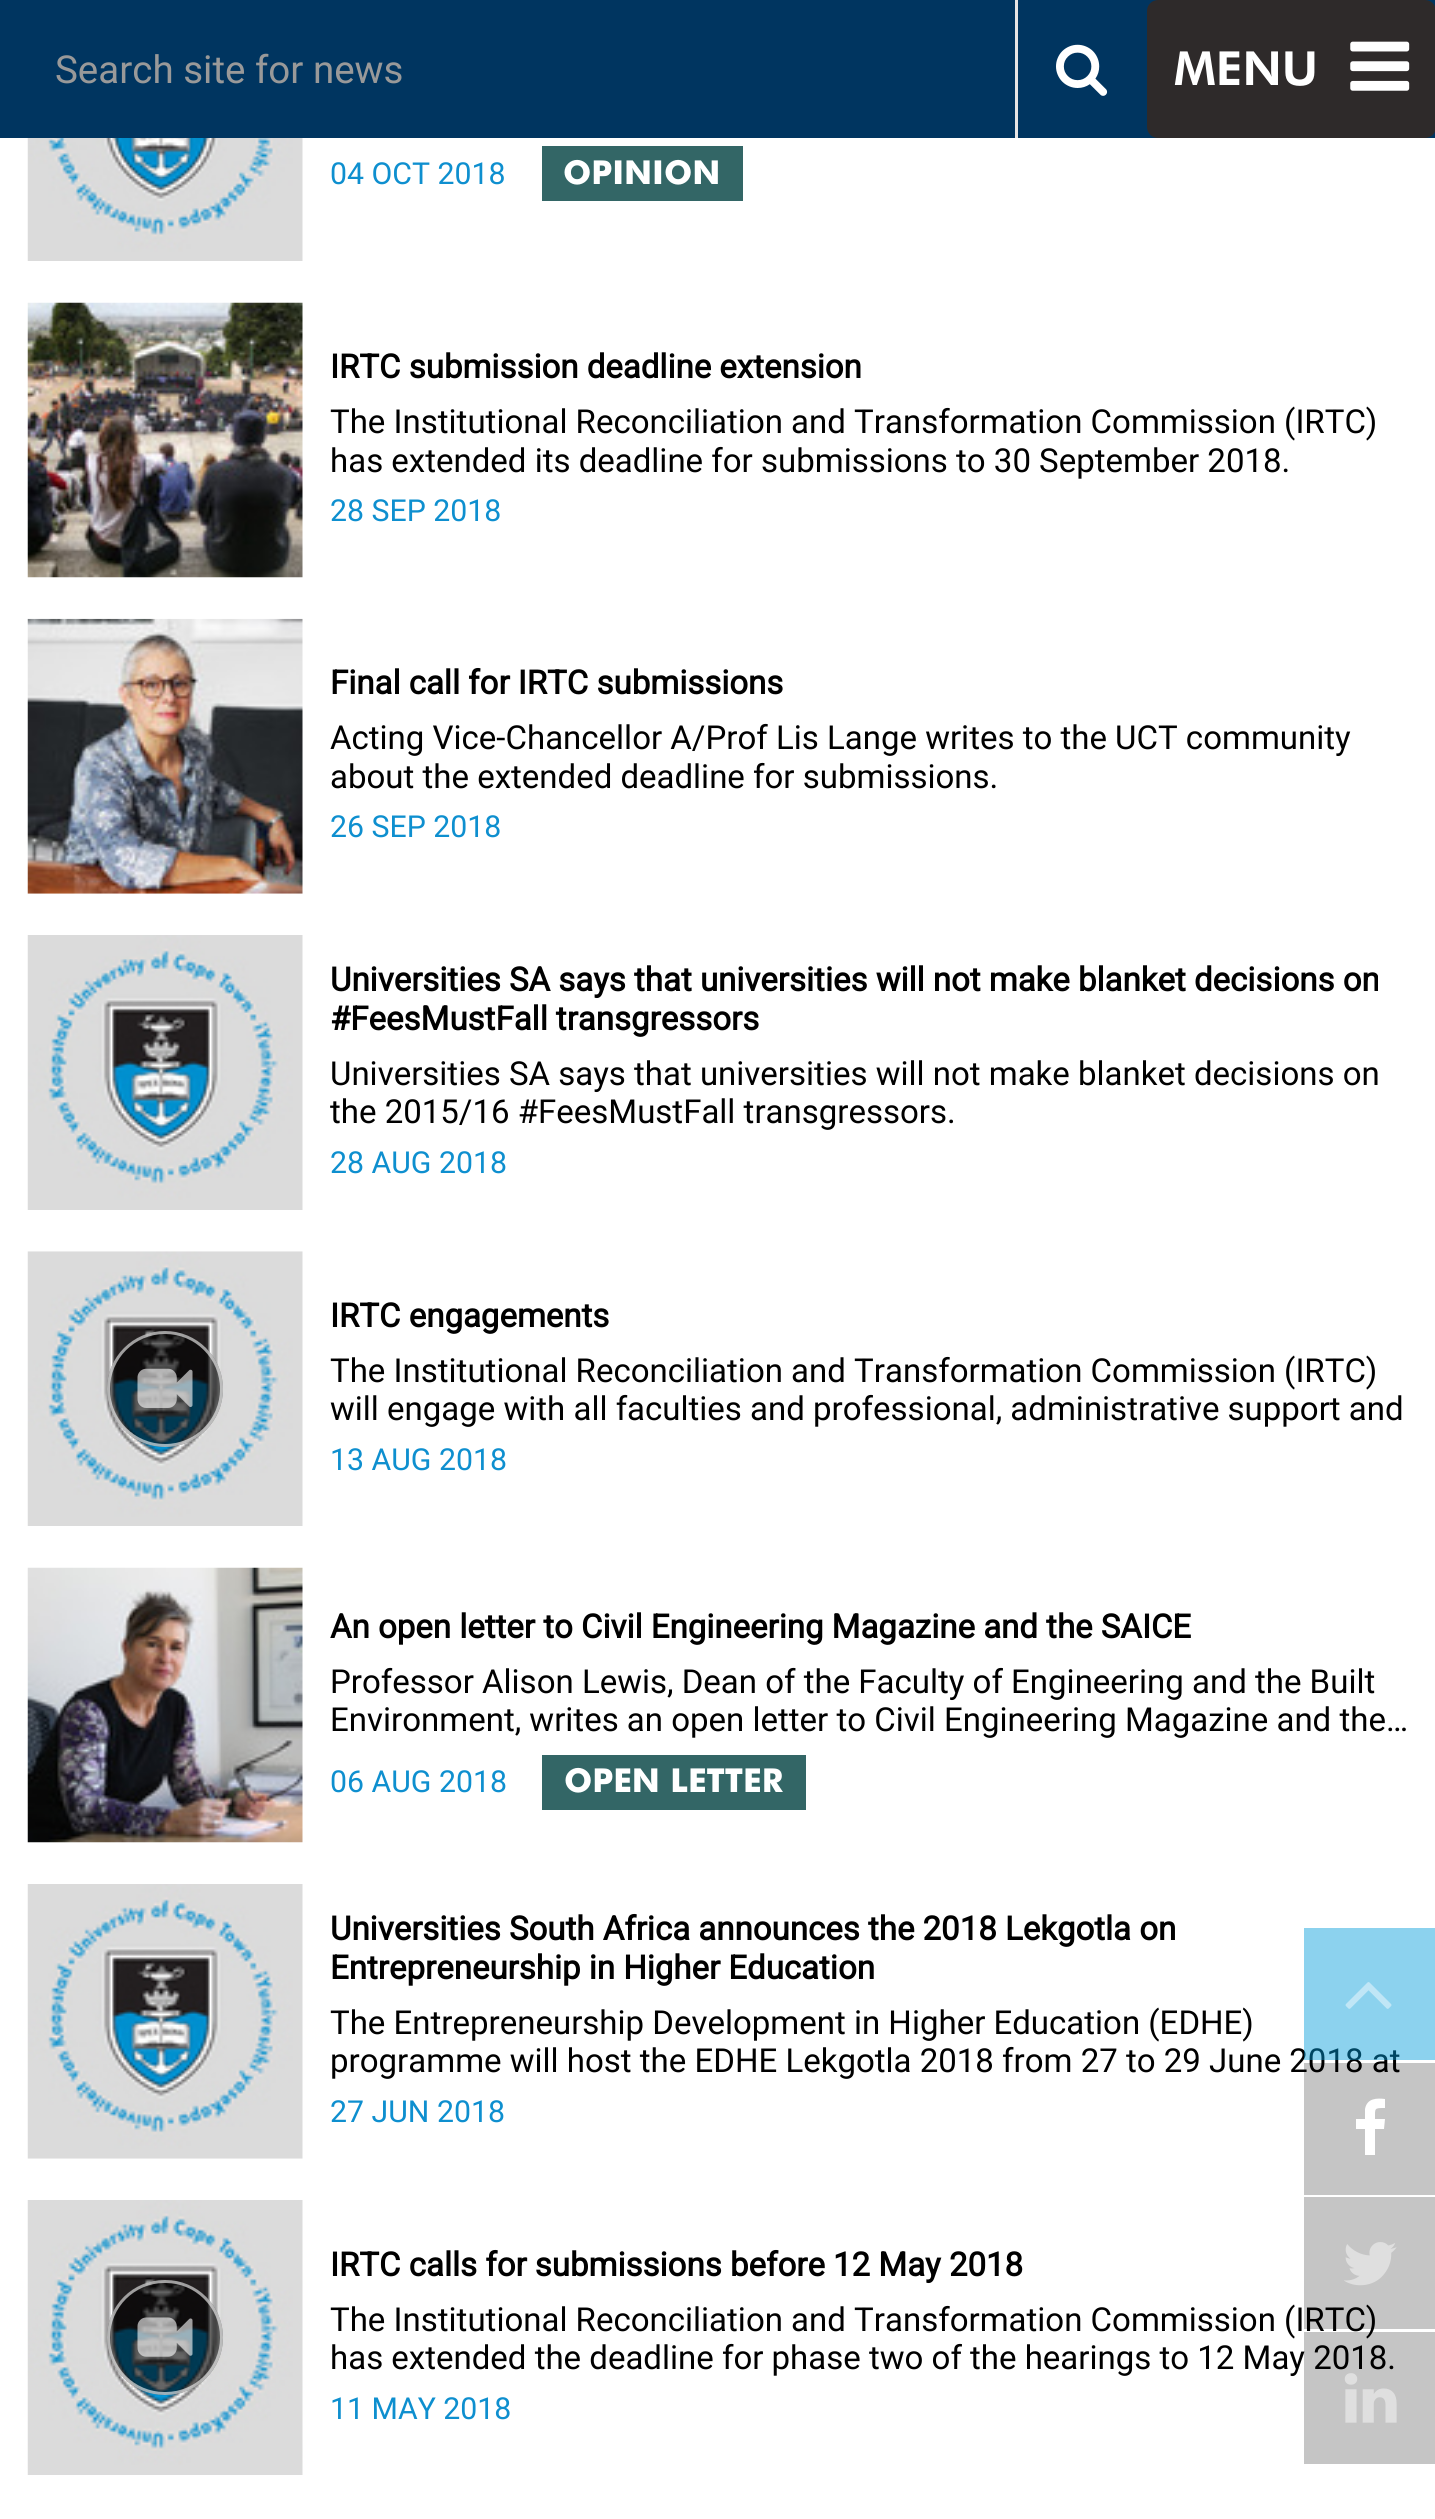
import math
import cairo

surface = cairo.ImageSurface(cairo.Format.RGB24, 1435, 2519)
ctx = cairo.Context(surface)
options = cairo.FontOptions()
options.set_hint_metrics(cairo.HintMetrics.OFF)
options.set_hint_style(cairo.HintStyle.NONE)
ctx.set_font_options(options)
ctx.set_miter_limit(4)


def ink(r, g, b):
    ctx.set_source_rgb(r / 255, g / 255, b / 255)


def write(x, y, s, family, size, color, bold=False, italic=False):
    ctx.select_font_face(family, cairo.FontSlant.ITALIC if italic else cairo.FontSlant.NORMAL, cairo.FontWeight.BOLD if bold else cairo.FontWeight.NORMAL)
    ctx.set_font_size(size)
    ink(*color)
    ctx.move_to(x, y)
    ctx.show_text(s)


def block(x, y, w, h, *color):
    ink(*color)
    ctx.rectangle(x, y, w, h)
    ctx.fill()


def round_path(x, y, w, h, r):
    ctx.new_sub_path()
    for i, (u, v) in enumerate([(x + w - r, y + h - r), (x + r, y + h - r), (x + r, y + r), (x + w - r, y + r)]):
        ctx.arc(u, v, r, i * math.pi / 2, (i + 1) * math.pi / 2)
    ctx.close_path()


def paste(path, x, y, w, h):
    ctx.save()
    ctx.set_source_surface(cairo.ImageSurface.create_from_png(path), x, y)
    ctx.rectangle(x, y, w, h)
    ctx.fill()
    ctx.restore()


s1 = dict(family="Roboto", size=38.5, color=(153, 153, 153))
s2 = dict(family="Futura Black", size=47, color=(255, 255, 255))
s3 = dict(family="Roboto", size=30.25, color=(14, 143, 207))
s4 = dict(family="Futura", size=33, color=(255, 255, 255), bold=True)
s5 = dict(family="Roboto", size=33, color=(0, 0, 0), bold=True)
s6 = dict(family="Roboto", size=33, color=(0, 0, 0))

ink(255, 255, 255)
ctx.paint()
block(0, 0, 1435, 138, 0, 53, 96)
write(55, 83, "Search site for news", **s1)
block(1015, 0, 3, 138, 231, 229, 229)
paste("pic1.png", 1056, 44, 52, 52)
ink(46, 42, 42)
round_path(1147, 0, 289, 138, 11)
ctx.fill()
write(1174, 85, "MENU", **s2)
paste("pic2.png", 1350, 41, 60, 50)
paste("pic3.png", 27, 138, 276, 123)
write(330, 184, "04 OCT 2018", **s3)
block(542, 146, 201, 55, 51, 102, 102)
write(563, 184, "OPINION", **s4)
paste("pic4.png", 27, 302, 276, 276)
write(330, 378, "IRTC submission deadline extension", **s5)
write(330, 433, "The Institutional Reconciliation and Transformation Commission (IRTC)", **s6)
write(330, 472, "has extended its deadline for submissions to 30 September 2018.", **s6)
write(330, 521, "28 SEP 2018", **s3)
paste("pic5.png", 27, 618, 276, 276)
write(330, 694, "Final call for IRTC submissions", **s5)
write(330, 749, "Acting Vice-Chancellor A/Prof Lis Lange writes to the UCT community", **s6)
write(330, 788, "about the extended deadline for submissions.", **s6)
write(330, 837, "26 SEP 2018", **s3)
paste("pic6.png", 27, 935, 276, 275)
write(330, 991, "Universities SA says that universities will not make blanket decisions on", **s5)
write(330, 1030, "#FeesMustFall transgressors", **s5)
write(330, 1085, "Universities SA says that universities will not make blanket decisions on", **s6)
write(330, 1123, "the 2015/16 #FeesMustFall transgressors.", **s6)
write(330, 1173, "28 AUG 2018", **s3)
paste("pic7.png", 27, 1251, 276, 275)
ctx.set_source_rgba(0, 0, 0, 0.6)
ctx.arc(165, 1389, 58, 0, 2 * math.pi)
ctx.fill()
ctx.arc(165, 1389, 56.5, 0, 2 * math.pi)
ctx.set_source_rgba(1, 1, 1, 0.6)
ctx.set_line_width(3)
ctx.stroke()
paste("pic8.png", 137, 1368, 56, 40)
write(330, 1327, "IRTC engagements", **s5)
write(330, 1382, "The Institutional Reconciliation and Transformation Commission (IRTC)", **s6)
write(330, 1420, "will engage with all faculties and professional, administrative support and", **s6)
write(330, 1470, "13 AUG 2018", **s3)
paste("pic9.png", 27, 1567, 276, 276)
write(330, 1638, "An open letter to Civil Engineering Magazine and the SAICE", **s5)
write(330, 1693, "Professor Alison Lewis, Dean of the Faculty of Engineering and the Built", **s6)
write(330, 1731, "Environment, writes an open letter to Civil Engineering Magazine and the…", **s6)
write(330, 1792, "06 AUG 2018", **s3)
block(542, 1755, 264, 55, 51, 102, 102)
write(564, 1792, "OPEN LETTER", **s4)
paste("pic10.png", 27, 1884, 276, 275)
write(330, 1940, "Universities South Africa announces the 2018 Lekgotla on", **s5)
write(330, 1979, "Entrepreneurship in Higher Education", **s5)
write(330, 2034, "The Entrepreneurship Development in Higher Education (EDHE)", **s6)
write(330, 2072, "programme will host the EDHE Lekgotla 2018 from 27 to 29 June 2018 at", **s6)
write(330, 2122, "27 JUN 2018", **s3)
paste("pic6.png", 27, 2200, 276, 275)
ctx.set_source_rgba(0, 0, 0, 0.6)
round_path(107, 2280, 116, 115, 57.5)
ctx.fill()
round_path(108.5, 2281.5, 113, 112, 56)
ctx.set_source_rgba(1, 1, 1, 0.6)
ctx.stroke()
paste("pic11.png", 137, 2317, 56, 40)
write(330, 2276, "IRTC calls for submissions before 12 May 2018", **s5)
write(330, 2331, "The Institutional Reconciliation and Transformation Commission (IRTC)", **s6)
write(330, 2369, "has extended the deadline for phase two of the hearings to 12 May 2018.", **s6)
write(330, 2419, "11 MAY 2018", **s3)
ctx.set_source_rgba(0, 0.608, 0.855, 0.45)
ctx.rectangle(1304, 1928, 131, 132)
ctx.fill()
paste("pic12.png", 1345, 1982, 47, 27)
ctx.set_source_rgba(0, 0, 0, 0.23)
ctx.rectangle(1304, 2063, 131, 132)
ctx.fill()
ink(255, 255, 255)
ctx.new_path()
ctx.move_to(1385, 2099)
ctx.line_to(1385, 2108)
ctx.curve_to(1374, 2108, 1375, 2108, 1375, 2119)
ctx.line_to(1385, 2119)
ctx.line_to(1384, 2129)
ctx.line_to(1375, 2129)
ctx.line_to(1375, 2155)
ctx.line_to(1365, 2155)
ctx.line_to(1365, 2129)
ctx.line_to(1356, 2129)
ctx.line_to(1356, 2119)
ctx.line_to(1365, 2119)
ctx.line_to(1365, 2109)
ctx.curve_to(1367, 2098, 1377, 2098, 1385, 2099)
ctx.close_path()
ctx.fill()
ctx.set_source_rgba(0, 0, 0, 0.23)
ctx.rectangle(1304, 2197, 131, 132)
ctx.fill()
paste("pic13.png", 1344, 2242, 53, 44)
ctx.rectangle(1304, 2332, 131, 132)
ctx.fill()
paste("pic14.png", 1344, 2373, 53, 50)
surface.write_to_png("screenshot.png")
